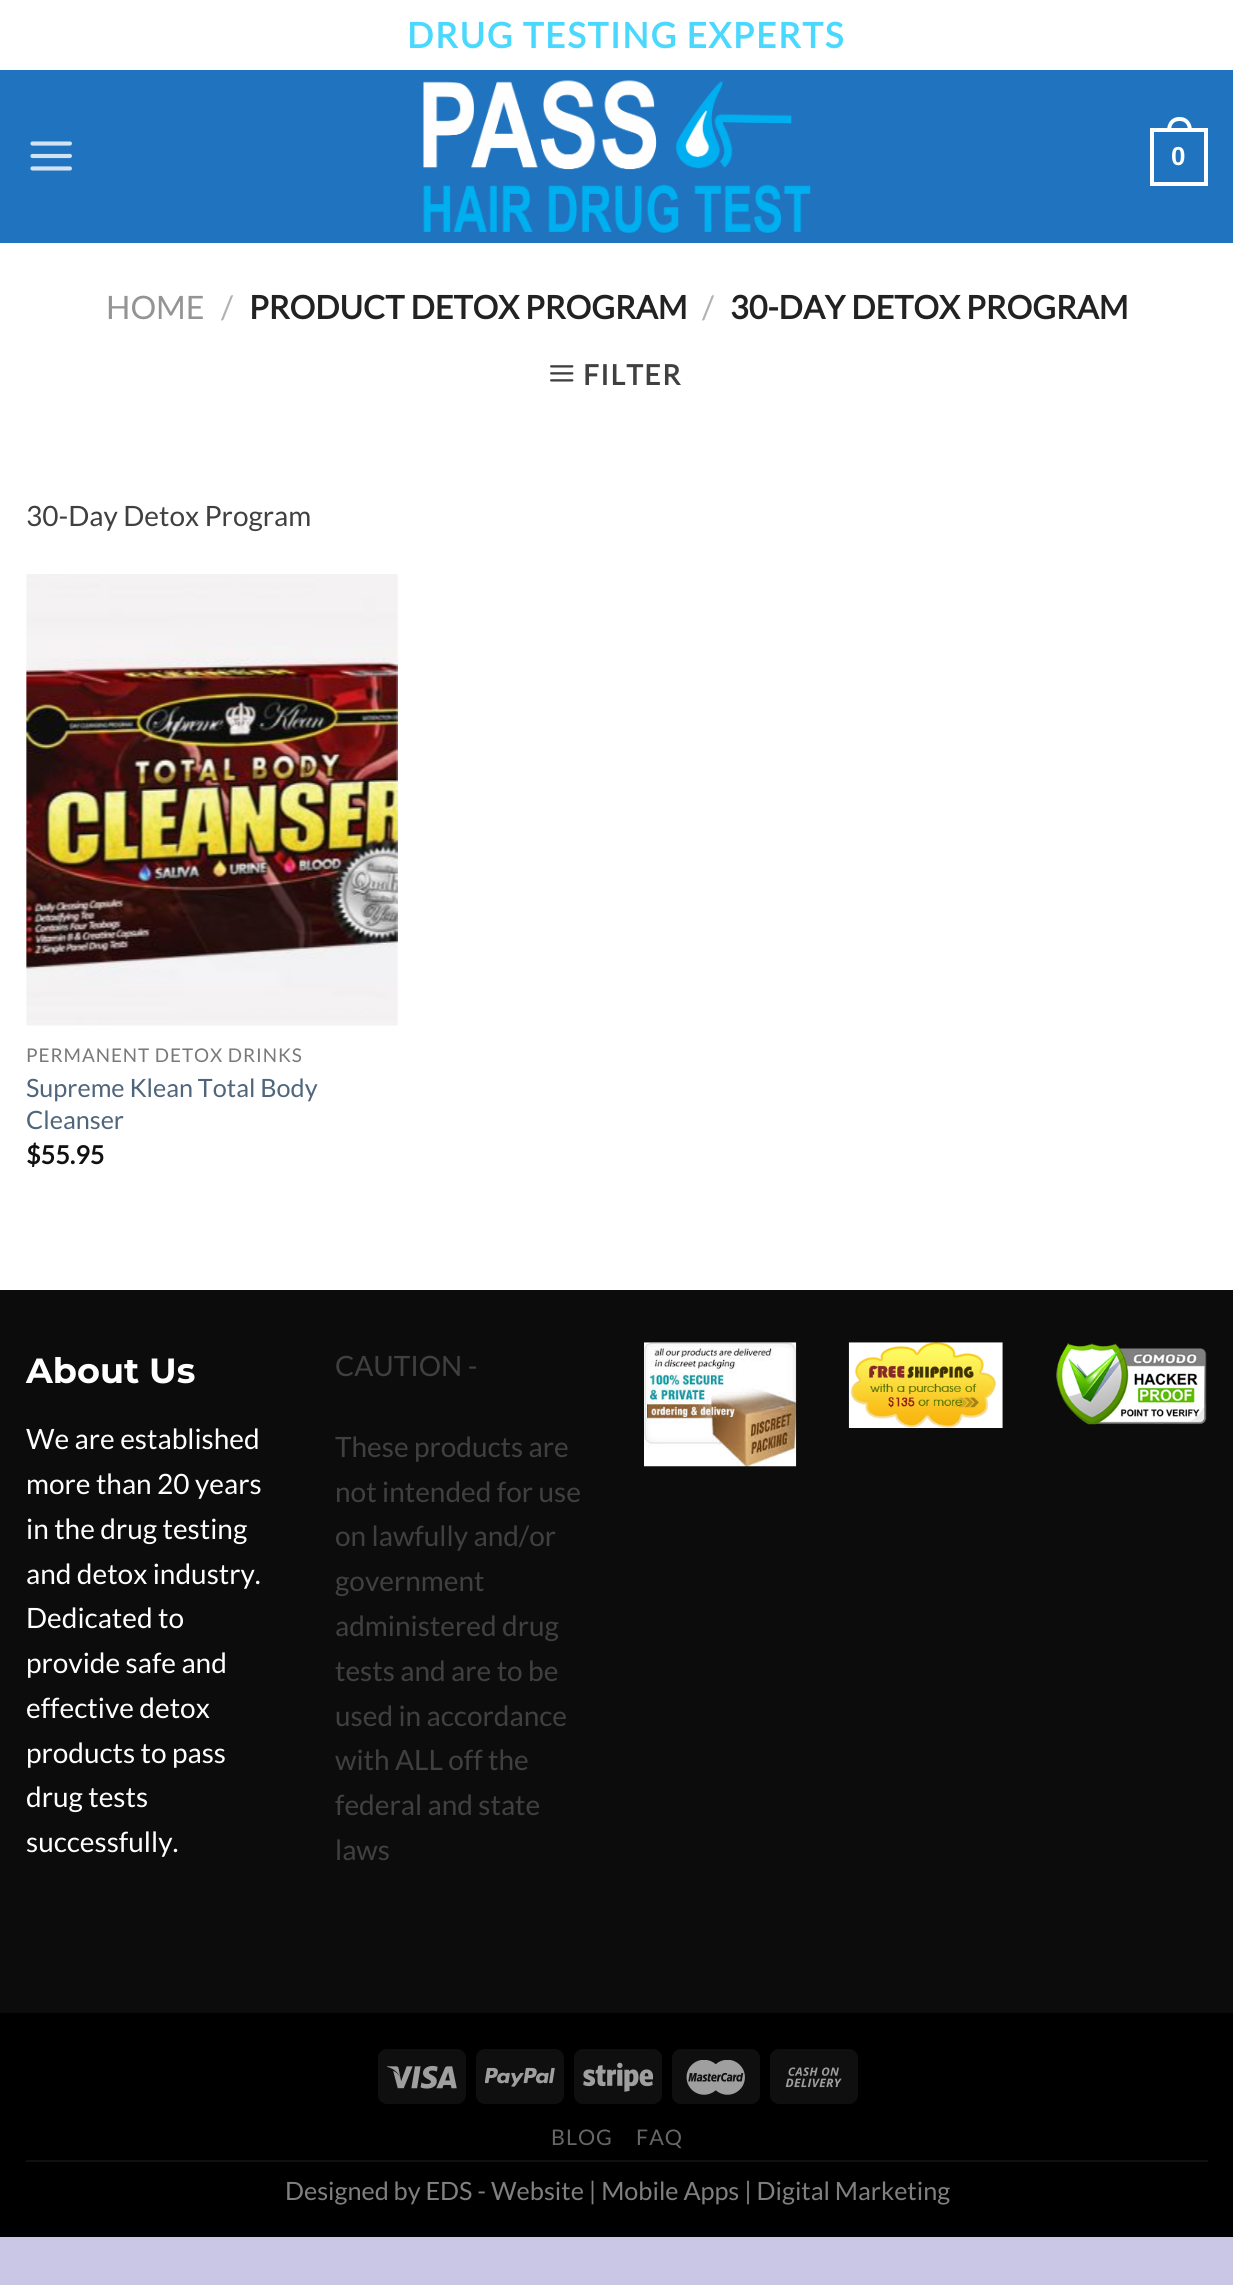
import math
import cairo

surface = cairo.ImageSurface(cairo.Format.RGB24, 1233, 2285)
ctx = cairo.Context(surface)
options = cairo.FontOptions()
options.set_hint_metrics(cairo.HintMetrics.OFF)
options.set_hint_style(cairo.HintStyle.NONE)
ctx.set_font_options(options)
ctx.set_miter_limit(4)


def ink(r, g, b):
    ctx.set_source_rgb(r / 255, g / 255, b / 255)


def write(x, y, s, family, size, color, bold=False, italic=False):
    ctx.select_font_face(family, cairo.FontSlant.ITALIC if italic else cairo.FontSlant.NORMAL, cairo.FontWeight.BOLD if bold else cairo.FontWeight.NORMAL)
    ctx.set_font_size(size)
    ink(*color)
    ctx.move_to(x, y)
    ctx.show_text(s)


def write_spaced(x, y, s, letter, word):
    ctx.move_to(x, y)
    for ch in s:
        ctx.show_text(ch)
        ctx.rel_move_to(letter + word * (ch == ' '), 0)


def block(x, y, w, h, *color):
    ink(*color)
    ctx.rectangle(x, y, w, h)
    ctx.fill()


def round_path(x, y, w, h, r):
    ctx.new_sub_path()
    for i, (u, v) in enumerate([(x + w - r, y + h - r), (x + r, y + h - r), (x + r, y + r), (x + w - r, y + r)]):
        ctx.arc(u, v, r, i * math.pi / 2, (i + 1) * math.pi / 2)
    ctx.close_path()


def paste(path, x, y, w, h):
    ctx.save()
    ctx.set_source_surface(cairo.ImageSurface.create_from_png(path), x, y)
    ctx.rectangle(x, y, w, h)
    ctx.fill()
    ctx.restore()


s1 = dict(family="Liberation Sans", size=26, color=(255, 255, 255), bold=True)
s2 = dict(family="Lato", size=32.25, color=(148, 148, 148))
s3 = dict(family="Lato", size=32.25, color=(178, 178, 178))
s4 = dict(family="Lato", size=32.25, color=(34, 34, 34), bold=True)
s5 = dict(family="Lato", size=28, color=(64, 64, 64))
s6 = dict(family="Lato", size=25.2, color=(78, 101, 123))
s7 = dict(family="Lato", size=25.2, color=(17, 17, 17), bold=True)
s8 = dict(family="Montserrat", size=35, color=(255, 255, 255), bold=True)
s9 = dict(family="Lato", size=28, color=(255, 255, 255))
s10 = dict(family="Lato", size=25.2, color=(128, 128, 128))

ink(202, 198, 230)
ctx.paint()
block(0, 243, 1233, 1047, 255, 255, 255)
block(0, 0, 1233, 70, 255, 255, 255)
ctx.select_font_face("Lato", cairo.FontSlant.NORMAL, cairo.FontWeight.BOLD)
ctx.set_font_size(35)
ink(74, 216, 255)
write_spaced(407, 48, "DRUG TESTING EXPERTS", 1.75, 0)
block(0, 70, 1233, 173, 32, 116, 191)
paste("pic1.png", 30, 141, 42, 30)
paste("pic2.png", 423, 80, 388, 153)
ctx.rectangle(1152, 130, 54, 54)
ink(255, 255, 255)
ctx.set_line_width(4)
ctx.stroke()
ctx.set_fill_rule(cairo.FillRule.EVEN_ODD)
ctx.new_path()
ctx.move_to(1179.5, 117)
ctx.curve_to(1188, 117, 1192, 123.5, 1192, 131)
ctx.line_to(1167, 131)
ctx.curve_to(1167, 123.5, 1171, 117, 1179.5, 117)
ctx.close_path()
ctx.move_to(1179.5, 121)
ctx.curve_to(1186, 121, 1188, 125.5, 1188, 131)
ctx.line_to(1171, 131)
ctx.curve_to(1171, 125.5, 1173, 121, 1179.5, 121)
ctx.close_path()
ctx.fill()
write(1171, 165, "0", **s1)
write(106, 319, "HOME", **s2)
write(221, 319, "/", **s3)
write(249, 319, "PRODUCT DETOX PROGRAM", **s4)
write(702, 319, "/", **s3)
write(730, 319, "30-DAY DETOX PROGRAM", **s4)
paste("pic3.png", 550, 365, 24, 17)
ctx.set_font_size(28)
ink(64, 64, 64)
write_spaced(583, 385, "FILTER", 1.5, 0)
write(26, 526, "30-Day Detox Program", **s5)
paste("pic4.png", 26, 574, 372, 452)
ctx.set_font_size(18.9)
ink(121, 121, 121)
write_spaced(26, 1062, "PERMANENT DETOX DRINKS", 0.95, 0)
write(26, 1097, "Supreme Klean Total Body", **s6)
write(26, 1129, "Cleanser", **s6)
write(26, 1164, "$55.95", **s7)
block(0, 1290, 1233, 723, 12, 12, 12)
write(26, 1383, "About Us", **s8)
write(26, 1449, "We are established", **s9)
write(26, 1494, "more than 20 years", **s9)
write(26, 1539, "in the drug testing", **s9)
write(26, 1584, "and detox industry.", **s9)
write(26, 1628, "Dedicated to", **s9)
write(26, 1673, "provide safe and", **s9)
write(26, 1718, "effective detox", **s9)
write(26, 1763, "products to pass", **s9)
write(26, 1807, "drug tests", **s9)
write(26, 1852, "successfully.", **s9)
write(335, 1376, "CAUTION -", **s5)
write(335, 1457, "These products are", **s5)
write(335, 1502, "not intended for use", **s5)
write(335, 1546, "on lawfully and/or", **s5)
write(335, 1591, "government", **s5)
write(335, 1636, "administered drug", **s5)
write(335, 1681, "tests and are to be", **s5)
write(335, 1726, "used in accordance", **s5)
write(335, 1770, "with ALL off the", **s5)
write(335, 1815, "federal and state", **s5)
write(335, 1860, "laws", **s5)
paste("pic5.png", 644, 1342, 153, 125)
paste("pic6.png", 848, 1342, 155, 86)
paste("pic7.png", 1056, 1343, 151, 82)
block(0, 2013, 1233, 224, 0, 0, 0)
ink(15, 15, 15)
round_path(378, 2049, 88, 55, 9)
ctx.fill()
paste("pic8.png", 387, 2065, 70, 24)
round_path(476, 2049, 88, 55, 9)
ctx.fill()
paste("pic9.png", 485, 2067, 70, 20)
round_path(574, 2049, 88, 55, 9)
ctx.fill()
paste("pic10.png", 583, 2062, 70, 30)
round_path(672, 2049, 88, 55, 9)
ctx.fill()
paste("pic11.png", 686, 2060, 59, 35)
round_path(770, 2049, 88, 55, 9)
ctx.fill()
paste("pic12.png", 785, 2067, 57, 21)
block(26, 2160, 1182, 2, 16, 16, 16)
ctx.set_font_size(21.5)
ink(102, 102, 102)
write_spaced(551, 2145, "BLOG", 1, 0)
write_spaced(636, 2145, "FAQ", 1, 0)
write(285, 2200, "Designed by EDS - Website | Mobile Apps | Digital Marketing", **s10)
surface.write_to_png("screenshot.png")
